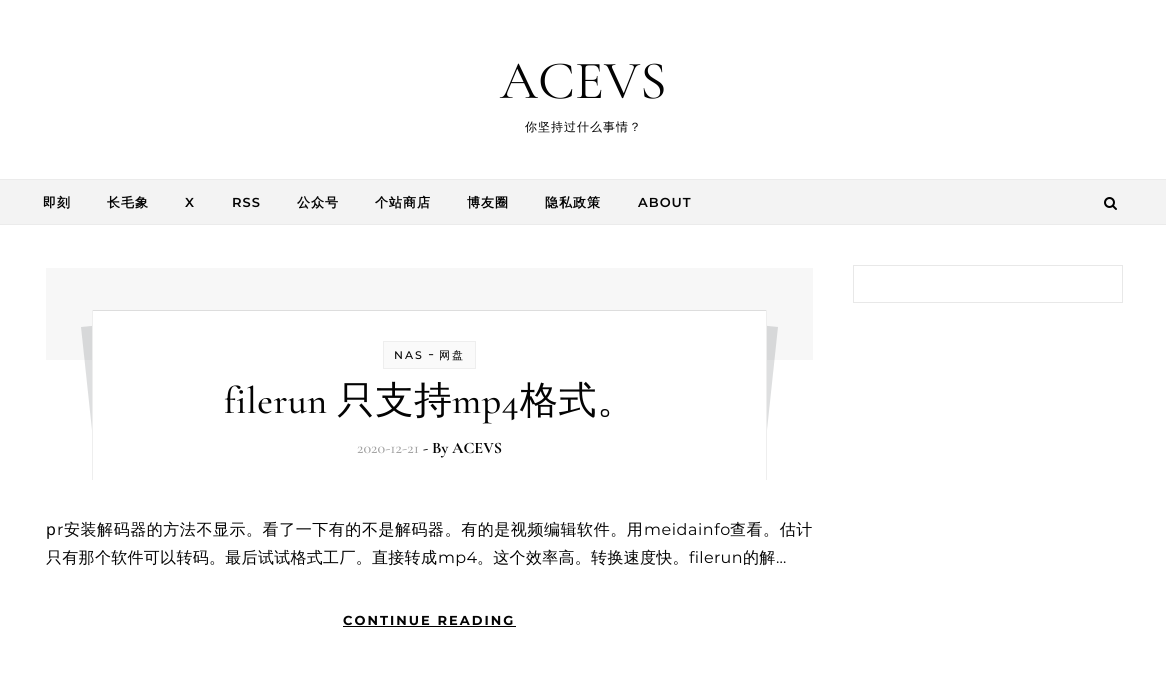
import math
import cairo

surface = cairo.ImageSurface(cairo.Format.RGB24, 1166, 682)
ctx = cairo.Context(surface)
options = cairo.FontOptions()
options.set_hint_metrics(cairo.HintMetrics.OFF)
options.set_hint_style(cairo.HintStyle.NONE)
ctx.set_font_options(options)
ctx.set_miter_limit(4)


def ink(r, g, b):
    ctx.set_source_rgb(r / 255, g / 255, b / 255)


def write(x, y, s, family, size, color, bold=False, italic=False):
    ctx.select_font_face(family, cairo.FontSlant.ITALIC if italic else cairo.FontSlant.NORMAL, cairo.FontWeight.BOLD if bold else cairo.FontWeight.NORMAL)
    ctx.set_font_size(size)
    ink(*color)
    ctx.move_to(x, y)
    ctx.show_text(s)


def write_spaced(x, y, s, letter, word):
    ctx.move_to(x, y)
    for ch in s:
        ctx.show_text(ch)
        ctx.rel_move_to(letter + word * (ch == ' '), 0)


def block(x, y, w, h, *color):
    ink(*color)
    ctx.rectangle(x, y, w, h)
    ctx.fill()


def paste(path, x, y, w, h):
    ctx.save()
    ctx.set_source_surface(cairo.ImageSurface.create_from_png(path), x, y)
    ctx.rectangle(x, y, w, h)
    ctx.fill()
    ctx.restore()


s1 = dict(family="Cormorant Garamond", size=54, color=(3, 3, 3))
s2 = dict(family="Montserrat Thin", size=16, color=(3, 3, 3))
s3 = dict(family="Cormorant Garamond Medium", size=16, color=(161, 161, 161))
s4 = dict(family="Cormorant Garamond", size=16, color=(3, 3, 3), bold=True)

ink(255, 255, 255)
ctx.paint()
block(0, 179, 1166, 1, 235, 235, 235)
write(500, 98, "ACEVS", **s1)
ctx.select_font_face("WenQuanYi Zen Hei Medium")
ctx.set_font_size(12)
write_spaced(525, 131, "你坚持过什么事情？", 1, 0)
block(0, 180, 1166, 44, 243, 243, 243)
block(0, 224, 1166, 1, 235, 235, 235)
ctx.select_font_face("WenQuanYi Zen Hei", cairo.FontSlant.NORMAL, cairo.FontWeight.BOLD)
ctx.set_font_size(13)
ink(3, 3, 3)
write_spaced(43, 207, "即刻", 1, 0)
write_spaced(107, 207, "长毛象", 1, 0)
ctx.select_font_face("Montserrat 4 Thin")
write_spaced(185, 207, "X", 1, 0)
write_spaced(232, 207, "RSS", 1, 0)
ctx.select_font_face("WenQuanYi Zen Hei", cairo.FontSlant.NORMAL, cairo.FontWeight.BOLD)
write_spaced(297, 207, "公众号", 1, 0)
write_spaced(375, 207, "个站商店", 1, 0)
write_spaced(467, 207, "博友圈", 1, 0)
write_spaced(545, 207, "隐私政策", 1, 0)
ctx.select_font_face("Montserrat 4 Thin")
write_spaced(638, 207, "ABOUT", 1, 0)
paste("pic1.png", 1104, 197, 13, 13)
ctx.rectangle(853.5, 265.5, 269, 37)
ink(232, 232, 232)
ctx.set_line_width(1)
ctx.stroke()
block(46, 268, 767, 92, 247, 247, 247)
ctx.set_source_rgba(0.153, 0.173, 0.192, 0.15)
ctx.new_path()
ctx.move_to(81, 327)
ctx.line_to(101, 325)
ctx.line_to(117, 475)
ctx.line_to(97, 477)
ctx.close_path()
ctx.fill()
ctx.new_path()
ctx.move_to(758, 325)
ctx.line_to(778, 327)
ctx.line_to(762, 477)
ctx.line_to(742, 475)
ctx.close_path()
ctx.fill()
block(93, 311, 673, 166, 255, 255, 255)
block(92, 310, 675, 1, 221, 221, 221)
block(766, 310, 1, 170, 238, 238, 238)
block(92, 310, 1, 170, 238, 238, 238)
ink(250, 250, 250)
ctx.rectangle(383.5, 341.5, 92, 27)
ctx.fill_preserve()
ink(238, 238, 238)
ctx.stroke()
ctx.select_font_face("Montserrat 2 Thin")
ctx.set_font_size(11)
ink(3, 3, 3)
write_spaced(394, 359, "NAS", 2, 0)
write(428, 359, "-", **s2)
ctx.select_font_face("WenQuanYi Zen Hei Medium")
ctx.set_font_size(11)
write_spaced(439, 359, "网盘", 2, 0)
ctx.select_font_face("Cormorant Garamond Medium")
ctx.set_font_size(38)
write_spaced(224, 413, "filerun", 0.5, 0)
ctx.select_font_face("WenQuanYi Zen Hei Medium")
write_spaced(337, 413, "只支持", 0.5, 0)
ctx.select_font_face("Cormorant Garamond Medium")
write_spaced(452, 413, "mp4", 0.5, 0)
ctx.select_font_face("WenQuanYi Zen Hei Medium")
write_spaced(520, 413, "格式。", 0.5, 0)
write(357, 453, "2020-12-21", **s3)
write(423, 453, "- By ACEVS", **s4)
ctx.select_font_face("Noto Sans")
write_spaced(46, 535, "p", 0.3, 0)
ctx.select_font_face("Montserrat Thin")
write_spaced(57, 535, "r", 0.55, 0)
ctx.select_font_face("WenQuanYi Zen Hei Medium")
write_spaced(64, 535, "安装解码器的方法不显示。看了一下有的不是解码器。有的是视频编辑软件。用", 0.55, 0)
ctx.select_font_face("Montserrat Thin")
write_spaced(644, 535, "meidainfo", 0.55, 0)
ctx.select_font_face("WenQuanYi Zen Hei Medium")
write_spaced(730, 535, "查看。估计", 0.55, 0)
write_spaced(46, 563, "只有那个软件可以转码。最后试试格式工厂。直接转成", 0.3, 0)
ctx.select_font_face("Montserrat Thin")
write_spaced(438, 563, "mp4", 0.3, 0)
ctx.select_font_face("WenQuanYi Zen Hei Medium")
write_spaced(477, 563, "。这个效率高。转换速度快。", 0.3, 0)
ctx.select_font_face("Montserrat Thin")
write_spaced(689, 563, "filerun", 0.3, 0)
ctx.select_font_face("WenQuanYi Zen Hei Medium")
write_spaced(743, 563, "的解", 0.3, 0)
ctx.select_font_face("Montserrat Thin")
write_spaced(776, 563, "…", 0.3, 0)
ctx.select_font_face("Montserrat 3 Thin")
ctx.set_font_size(13)
write_spaced(343, 625, "CONTINUE READING", 2, 0)
block(343, 626, 173, 1, 1, 1, 1)
surface.write_to_png("screenshot.png")
